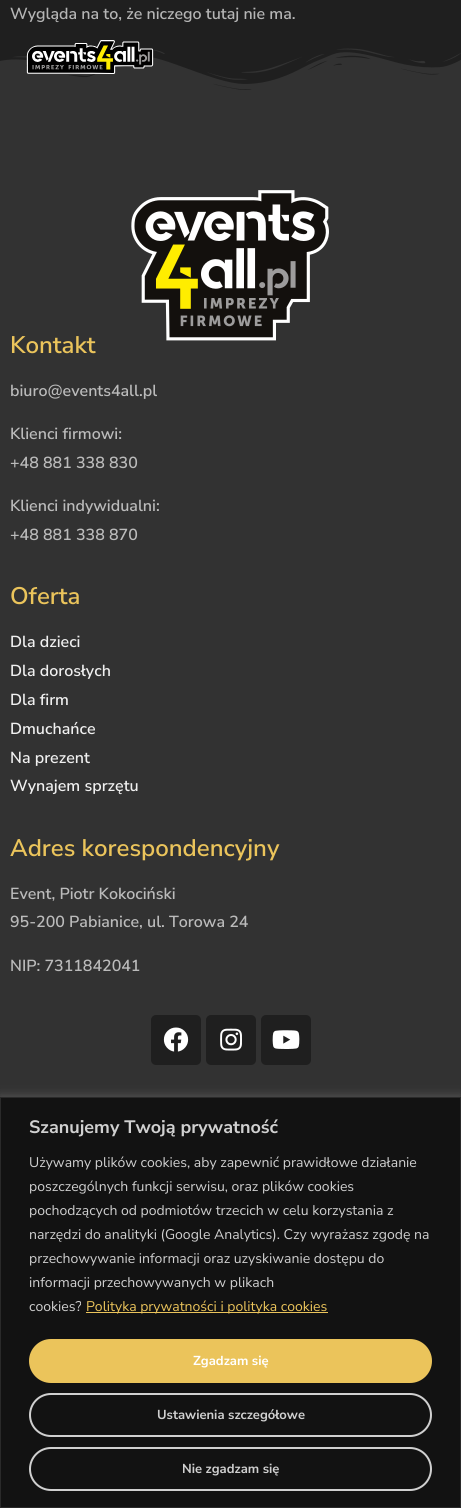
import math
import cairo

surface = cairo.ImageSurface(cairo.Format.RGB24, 461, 1508)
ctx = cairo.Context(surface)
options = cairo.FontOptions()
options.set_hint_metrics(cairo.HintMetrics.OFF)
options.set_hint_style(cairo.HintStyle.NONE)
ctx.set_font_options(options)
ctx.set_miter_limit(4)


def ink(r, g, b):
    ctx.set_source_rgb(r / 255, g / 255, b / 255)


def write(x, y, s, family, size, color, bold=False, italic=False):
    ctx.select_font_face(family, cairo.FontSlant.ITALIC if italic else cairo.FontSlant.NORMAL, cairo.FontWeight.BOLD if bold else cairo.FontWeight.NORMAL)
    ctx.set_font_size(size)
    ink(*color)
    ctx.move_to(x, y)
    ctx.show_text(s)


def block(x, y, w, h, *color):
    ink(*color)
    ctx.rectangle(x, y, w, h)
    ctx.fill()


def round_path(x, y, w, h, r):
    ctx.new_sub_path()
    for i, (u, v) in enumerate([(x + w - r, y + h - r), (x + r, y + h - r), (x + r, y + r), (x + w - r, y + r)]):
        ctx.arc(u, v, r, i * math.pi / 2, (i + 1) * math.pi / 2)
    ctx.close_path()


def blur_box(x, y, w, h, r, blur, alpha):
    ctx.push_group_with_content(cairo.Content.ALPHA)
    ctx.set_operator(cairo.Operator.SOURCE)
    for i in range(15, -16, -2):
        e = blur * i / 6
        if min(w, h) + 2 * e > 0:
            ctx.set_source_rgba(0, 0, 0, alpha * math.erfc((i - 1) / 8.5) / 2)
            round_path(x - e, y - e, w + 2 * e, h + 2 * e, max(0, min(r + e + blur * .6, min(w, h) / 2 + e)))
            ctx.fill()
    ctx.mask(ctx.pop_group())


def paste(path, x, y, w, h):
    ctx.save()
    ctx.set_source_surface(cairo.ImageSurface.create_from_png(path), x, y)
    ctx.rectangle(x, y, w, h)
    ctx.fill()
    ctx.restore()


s1 = dict(family="Nunito Sans SemiBold", size=16, color=(181, 181, 181))
s2 = dict(family="Nunito Sans SemiBold", size=24, color=(235, 196, 91))
s3 = dict(family="Nunito Sans SemiBold", size=16, color=(187, 187, 187))
s4 = dict(family="Nunito Sans SemiBold", size=16, color=(240, 240, 240))
s5 = dict(family="Nunito Sans", size=18, color=(208, 208, 208), bold=True)
s6 = dict(family="Nunito Sans", size=14, color=(208, 208, 208))
s7 = dict(family="Nunito Sans", size=14, color=(235, 196, 91))
s8 = dict(family="Nunito Sans", size=13, color=(255, 255, 255), bold=True)
s9 = dict(family="Nunito Sans", size=13, color=(208, 208, 208), bold=True)

ink(31, 31, 31)
ctx.paint()
write(10, 19, "Wygląda na to, że niczego tutaj nie ma.", **s1)
block(0, 48, 461, 1049, 50, 50, 50)
paste("pic2.png", 0, 43, 461, 47)
paste("pic1.png", 26, 40, 128, 34)
paste("pic3.png", 131, 190, 198, 151)
write(10, 353, "Kontakt", **s2)
write(10, 396, "biuro@events4all.pl", **s3)
write(10, 439, "Klienci firmowi:", **s3)
write(10, 468, "+48 881 338 830", **s3)
write(10, 511, "Klienci indywidualni:", **s3)
write(10, 540, "+48 881 338 870", **s3)
write(10, 604, "Oferta", **s2)
write(10, 647, "Dla dzieci", **s4)
write(10, 676, "Dla dorosłych", **s4)
write(10, 705, "Dla firm", **s4)
write(10, 734, "Dmuchańce", **s4)
write(10, 763, "Na prezent", **s4)
write(10, 791, "Wynajem sprzętu", **s4)
write(10, 856, "Adres korespondencyjny", **s2)
write(10, 899, "Event, Piotr Kokociński", **s3)
write(10, 927, "95-200 Pabianice, ul. Torowa 24", **s3)
write(10, 971, "NIP: 7311842041", **s3)
ink(31, 31, 31)
round_path(151, 1015, 50, 50, 5)
ctx.fill()
paste("pic4.png", 163, 1027, 26, 25)
round_path(206, 1015, 50, 50, 5)
ctx.fill()
paste("pic5.png", 220, 1028, 22, 23)
round_path(261, 1015, 50, 50, 5)
ctx.fill()
paste("pic6.png", 272, 1030, 28, 19)
ink(172, 171, 171)
blur_box(0, 1096, 461, 411, 0, 5, 0.3)
ink(18, 18, 18)
ctx.rectangle(0.5, 1097.5, 460, 410)
ctx.fill_preserve()
ink(42, 42, 42)
ctx.set_line_width(1)
ctx.stroke()
write(29, 1133, "Szanujemy Twoją prywatność", **s5)
write(29, 1167, "Używamy plików cookies, aby zapewnić prawidłowe działanie", **s6)
write(29, 1191, "poszczególnych funkcji serwisu, oraz plików cookies", **s6)
write(29, 1215, "pochodzących od podmiotów trzecich w celu korzystania z", **s6)
write(29, 1239, "narzędzi do analityki (Google Analytics). Czy wyrażasz zgodę na", **s6)
write(29, 1263, "przechowywanie informacji oraz uzyskiwanie dostępu do", **s6)
write(29, 1287, "informacji przechowywanych w plikach", **s6)
write(29, 1311, "cookies?", **s6)
block(86, 1312, 242, 1, 235, 196, 91)
write(86, 1311, "Polityka prywatności i polityka cookies", **s7)
round_path(30, 1340, 401, 42, 21)
ctx.fill_preserve()
ctx.set_line_width(2)
ctx.stroke()
write(193, 1365, "Zgadzam się", **s8)
round_path(30, 1394, 401, 42, 21)
ink(208, 208, 208)
ctx.stroke()
write(157, 1419, "Ustawienia szczegółowe", **s9)
round_path(30, 1448, 401, 42, 21)
ctx.stroke()
write(182, 1473, "Nie zgadzam się", **s9)
surface.write_to_png("screenshot.png")
